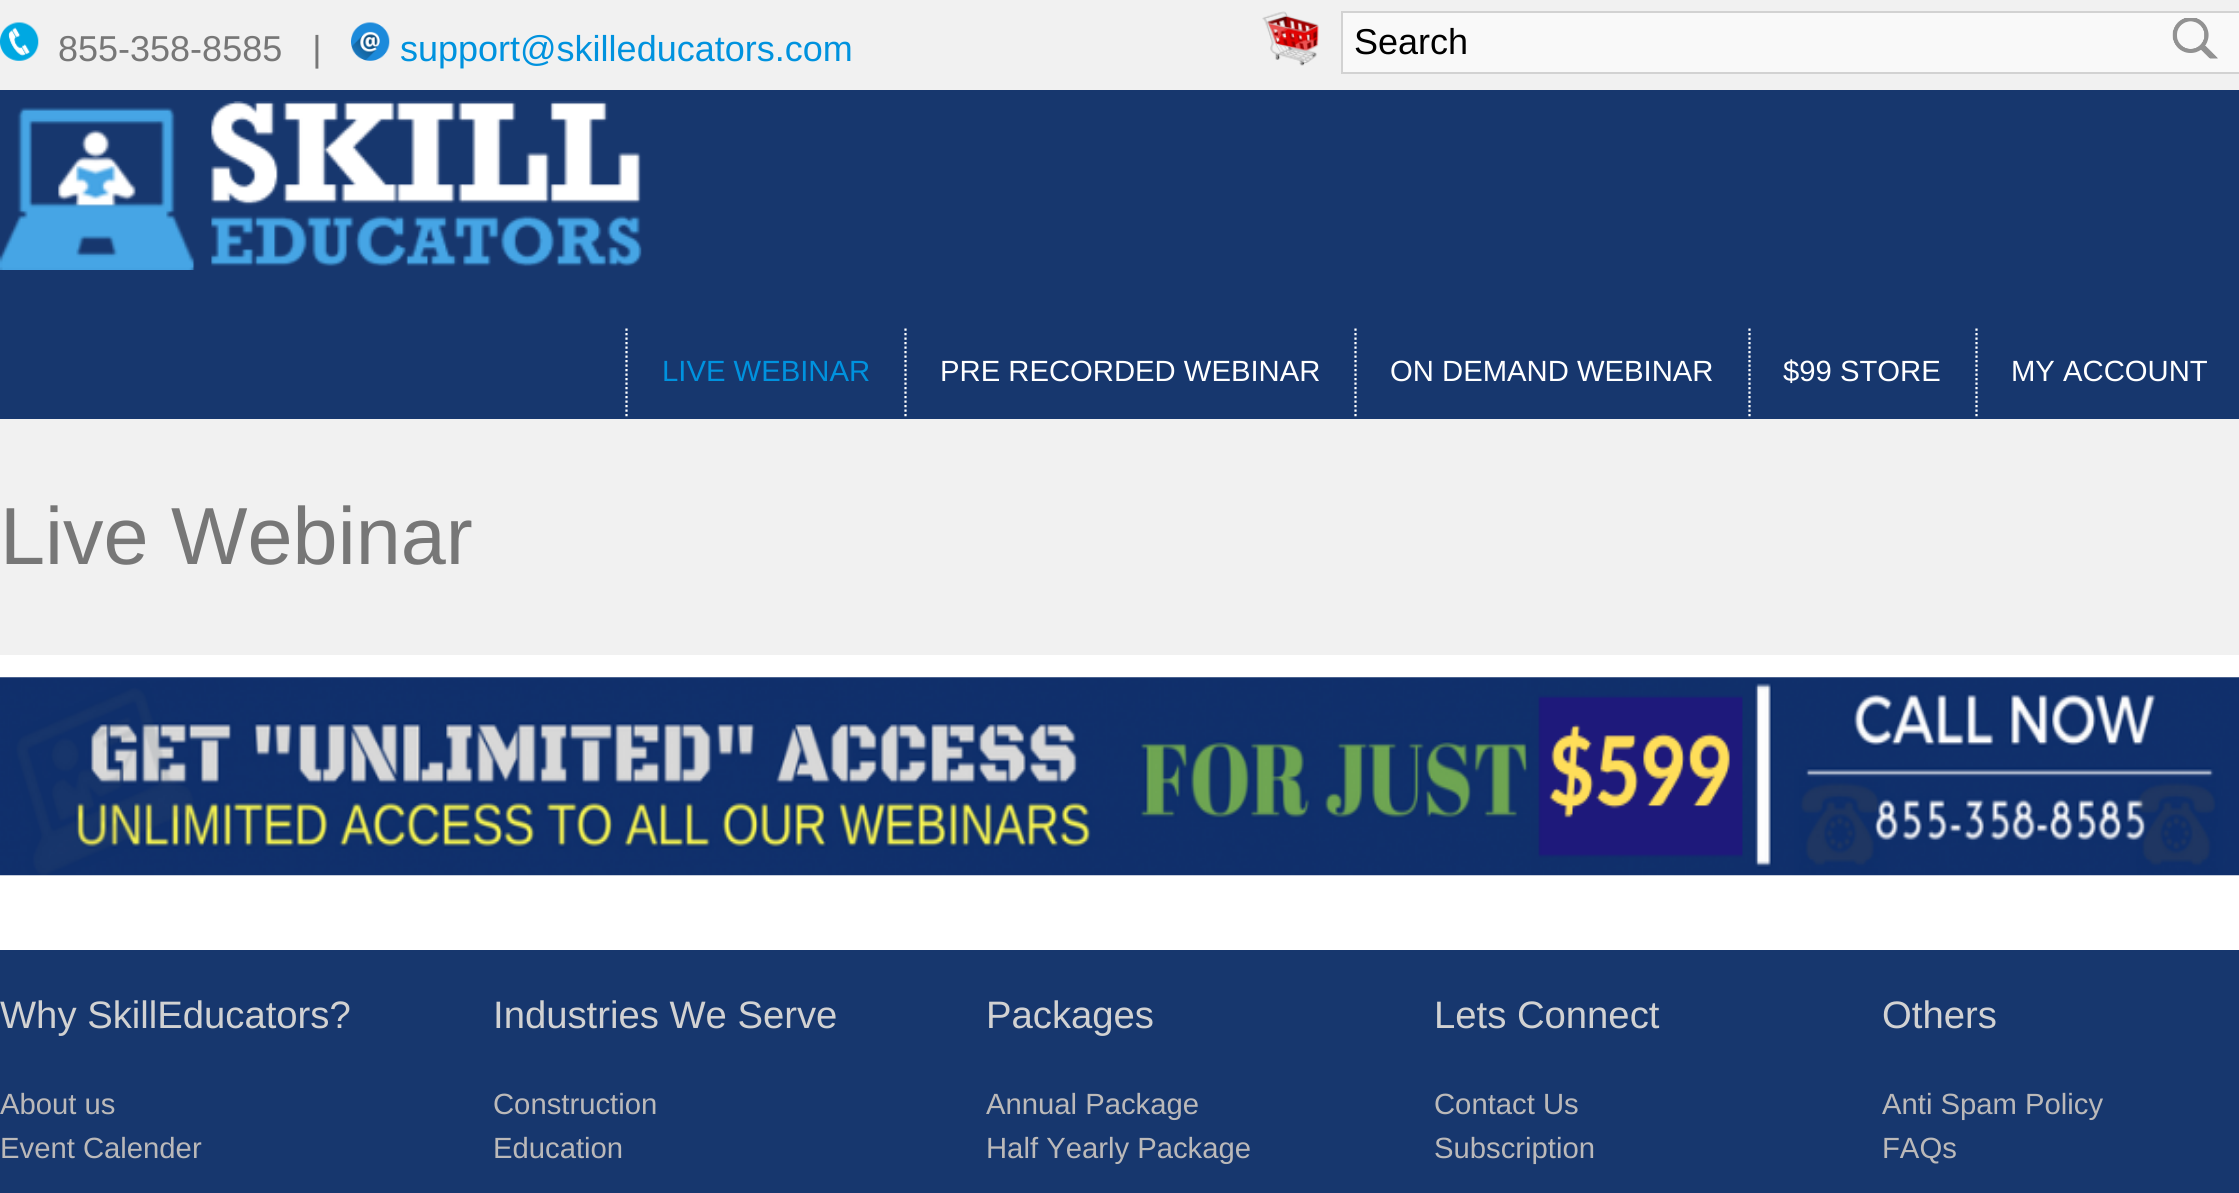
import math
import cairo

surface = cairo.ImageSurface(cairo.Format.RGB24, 2239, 1193)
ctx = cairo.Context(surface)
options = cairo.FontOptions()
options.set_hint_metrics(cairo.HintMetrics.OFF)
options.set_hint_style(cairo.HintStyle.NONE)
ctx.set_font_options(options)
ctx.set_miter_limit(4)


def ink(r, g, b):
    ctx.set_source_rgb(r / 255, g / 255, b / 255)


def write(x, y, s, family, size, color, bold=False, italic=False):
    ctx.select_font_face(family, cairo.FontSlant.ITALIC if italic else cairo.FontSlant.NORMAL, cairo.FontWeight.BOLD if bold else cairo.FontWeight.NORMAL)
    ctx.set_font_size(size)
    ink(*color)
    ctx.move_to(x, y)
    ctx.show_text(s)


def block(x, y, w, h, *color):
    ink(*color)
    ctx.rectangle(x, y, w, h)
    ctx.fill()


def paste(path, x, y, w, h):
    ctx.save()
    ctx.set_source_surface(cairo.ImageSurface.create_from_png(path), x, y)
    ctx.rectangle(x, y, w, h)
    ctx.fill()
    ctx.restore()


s1 = dict(family="Liberation Sans", size=36, color=(119, 119, 119))
s2 = dict(family="Liberation Sans", size=36, color=(0, 146, 222))
s3 = dict(family="Liberation Sans", size=36, color=(0, 0, 0))
s4 = dict(family="Liberation Sans", size=29.25, color=(0, 146, 222))
s5 = dict(family="Liberation Sans", size=29.25, color=(255, 255, 255))
s6 = dict(family="Liberation Sans", size=81, color=(119, 119, 119))
s7 = dict(family="Liberation Sans", size=38.25, color=(210, 210, 210))
s8 = dict(family="Liberation Sans", size=29.25, color=(187, 185, 185))

ink(255, 255, 255)
ctx.paint()
block(0, 0, 2239, 90, 241, 241, 241)
paste("pic1.png", 0, 22, 39, 39)
write(58, 61, "855-358-8585   |", **s1)
paste("pic2.png", 351, 22, 39, 39)
write(400, 61, "support@skilleducators.com", **s2)
paste("pic3.png", 1262, 11, 57, 55)
ink(249, 249, 249)
ctx.rectangle(1342, 12, 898, 61)
ctx.fill_preserve()
ink(210, 210, 210)
ctx.stroke()
write(1354, 54, "Search", **s3)
paste("pic4.png", 2172, 18, 46, 41)
block(0, 90, 2239, 329, 23, 55, 110)
paste("pic5.png", 0, 101, 642, 169)
ctx.new_path()
ctx.move_to(626.5, 328.5)
ctx.line_to(626.5, 418.5)
ink(255, 255, 255)
ctx.set_line_width(2.2)
ctx.set_dash([2.25, 2.25])
ctx.stroke()
write(662, 381, "LIVE WEBINAR", **s4)
ctx.new_path()
ctx.move_to(905.5, 328.5)
ctx.line_to(905.5, 418.5)
ink(255, 255, 255)
ctx.stroke()
write(940, 381, "PRE RECORDED WEBINAR", **s5)
ctx.new_path()
ctx.move_to(1355.5, 328.5)
ctx.line_to(1355.5, 418.5)
ctx.stroke()
write(1390, 381, "ON DEMAND WEBINAR", **s5)
ctx.new_path()
ctx.move_to(1749.5, 328.5)
ctx.line_to(1749.5, 418.5)
ctx.stroke()
write(1783, 381, "$99 STORE", **s5)
ctx.new_path()
ctx.move_to(1976.5, 328.5)
ctx.line_to(1976.5, 418.5)
ctx.stroke()
write(2011, 381, "MY ACCOUNT", **s5)
block(0, 419, 2239, 236, 241, 241, 241)
write(0, 564, "Live Webinar", **s6)
paste("pic6.png", 0, 677, 2239, 199)
block(0, 950, 2239, 243, 23, 55, 110)
write(0, 1028, "Why SkillEducators?", **s7)
write(0, 1114, "About us", **s8)
write(0, 1158, "Event Calender", **s8)
write(493, 1028, "Industries We Serve", **s7)
write(493, 1114, "Construction", **s8)
write(493, 1158, "Education", **s8)
write(986, 1028, "Packages", **s7)
write(986, 1114, "Annual Package", **s8)
write(986, 1158, "Half Yearly Package", **s8)
write(1434, 1028, "Lets Connect", **s7)
write(1434, 1114, "Contact Us", **s8)
write(1434, 1158, "Subscription", **s8)
write(1882, 1028, "Others", **s7)
write(1882, 1114, "Anti Spam Policy", **s8)
write(1882, 1158, "FAQs", **s8)
surface.write_to_png("screenshot.png")
